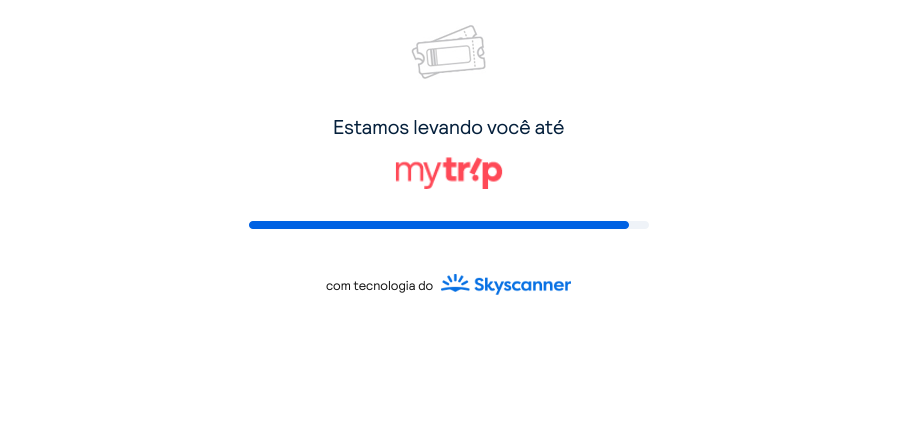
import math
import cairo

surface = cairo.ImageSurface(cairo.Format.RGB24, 897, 433)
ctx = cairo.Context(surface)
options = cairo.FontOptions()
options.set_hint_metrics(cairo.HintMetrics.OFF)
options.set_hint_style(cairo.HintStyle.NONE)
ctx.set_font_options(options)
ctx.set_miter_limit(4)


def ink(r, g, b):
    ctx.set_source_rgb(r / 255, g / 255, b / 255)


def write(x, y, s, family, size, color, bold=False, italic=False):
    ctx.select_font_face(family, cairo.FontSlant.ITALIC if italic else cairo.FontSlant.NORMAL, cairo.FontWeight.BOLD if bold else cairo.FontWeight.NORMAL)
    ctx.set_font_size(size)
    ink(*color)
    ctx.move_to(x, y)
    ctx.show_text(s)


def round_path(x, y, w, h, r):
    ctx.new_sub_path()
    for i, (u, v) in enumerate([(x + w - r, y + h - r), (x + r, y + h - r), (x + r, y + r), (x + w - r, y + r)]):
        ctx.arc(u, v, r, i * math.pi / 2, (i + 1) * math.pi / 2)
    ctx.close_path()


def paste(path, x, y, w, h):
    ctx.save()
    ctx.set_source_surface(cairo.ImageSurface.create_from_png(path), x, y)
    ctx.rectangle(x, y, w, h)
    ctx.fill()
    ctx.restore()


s1 = dict(family="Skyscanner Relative", size=20, color=(5, 32, 60))
s2 = dict(family="Skyscanner Relative", size=13, color=(22, 22, 22))

ink(255, 255, 255)
ctx.paint()
paste("pic1.png", 411, 25, 75, 54)
write(333, 134, "Estamos levando você até", **s1)
paste("pic2.png", 395, 157, 108, 32)
ink(239, 243, 248)
round_path(249, 221, 400, 8, 4)
ctx.fill()
ink(0, 98, 227)
round_path(249, 221, 380, 8, 4)
ctx.fill()
write(326, 290, "com tecnologia do", **s2)
paste("pic3.png", 441, 274, 130, 21)
surface.write_to_png("screenshot.png")
